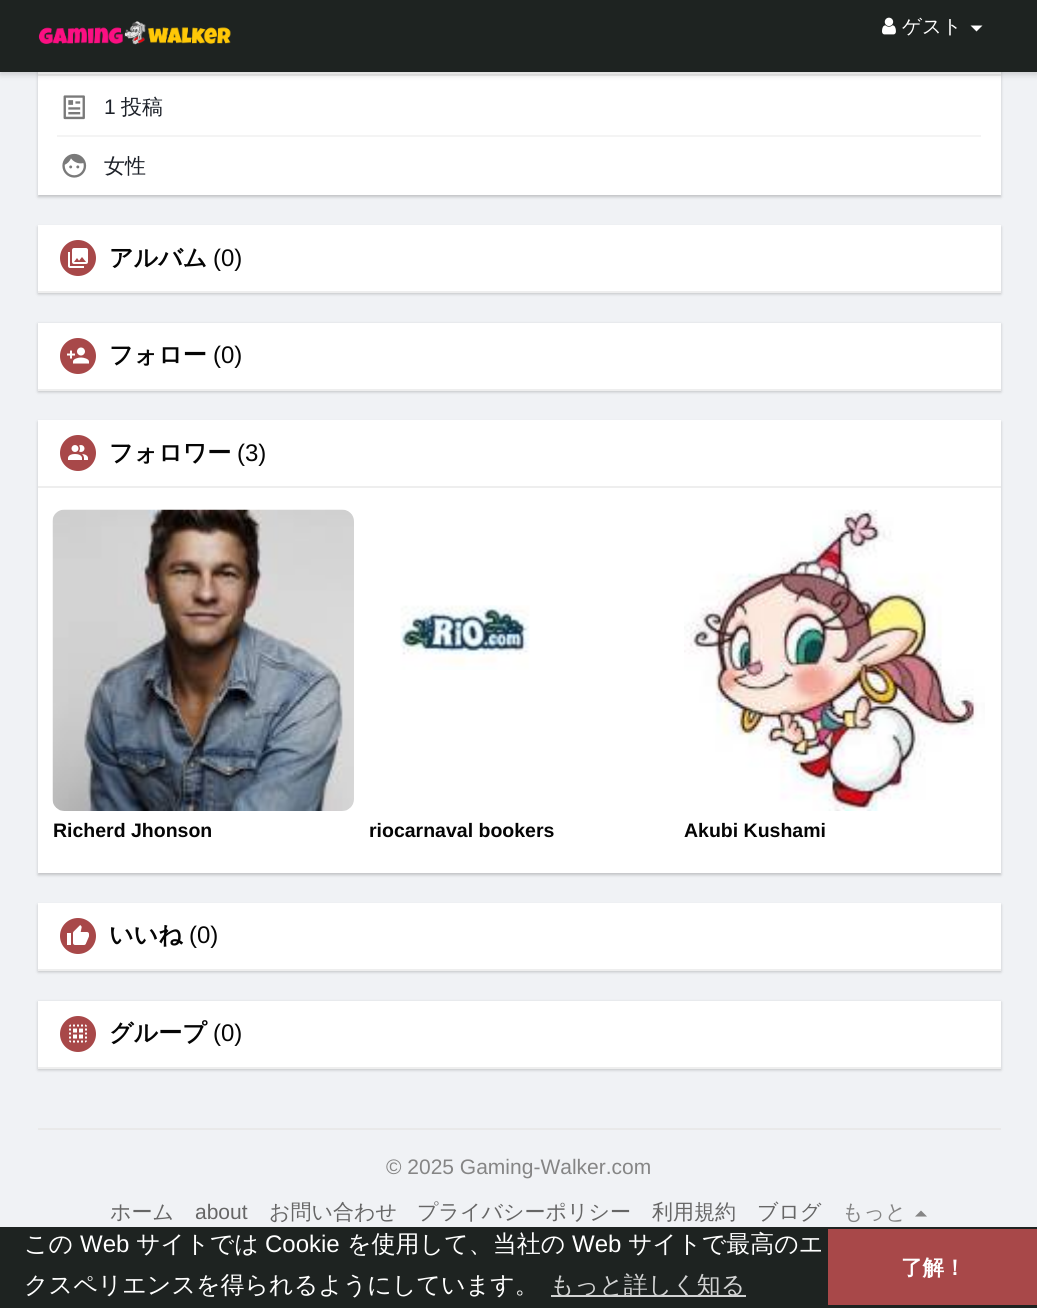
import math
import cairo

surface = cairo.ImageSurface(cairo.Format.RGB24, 1037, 1308)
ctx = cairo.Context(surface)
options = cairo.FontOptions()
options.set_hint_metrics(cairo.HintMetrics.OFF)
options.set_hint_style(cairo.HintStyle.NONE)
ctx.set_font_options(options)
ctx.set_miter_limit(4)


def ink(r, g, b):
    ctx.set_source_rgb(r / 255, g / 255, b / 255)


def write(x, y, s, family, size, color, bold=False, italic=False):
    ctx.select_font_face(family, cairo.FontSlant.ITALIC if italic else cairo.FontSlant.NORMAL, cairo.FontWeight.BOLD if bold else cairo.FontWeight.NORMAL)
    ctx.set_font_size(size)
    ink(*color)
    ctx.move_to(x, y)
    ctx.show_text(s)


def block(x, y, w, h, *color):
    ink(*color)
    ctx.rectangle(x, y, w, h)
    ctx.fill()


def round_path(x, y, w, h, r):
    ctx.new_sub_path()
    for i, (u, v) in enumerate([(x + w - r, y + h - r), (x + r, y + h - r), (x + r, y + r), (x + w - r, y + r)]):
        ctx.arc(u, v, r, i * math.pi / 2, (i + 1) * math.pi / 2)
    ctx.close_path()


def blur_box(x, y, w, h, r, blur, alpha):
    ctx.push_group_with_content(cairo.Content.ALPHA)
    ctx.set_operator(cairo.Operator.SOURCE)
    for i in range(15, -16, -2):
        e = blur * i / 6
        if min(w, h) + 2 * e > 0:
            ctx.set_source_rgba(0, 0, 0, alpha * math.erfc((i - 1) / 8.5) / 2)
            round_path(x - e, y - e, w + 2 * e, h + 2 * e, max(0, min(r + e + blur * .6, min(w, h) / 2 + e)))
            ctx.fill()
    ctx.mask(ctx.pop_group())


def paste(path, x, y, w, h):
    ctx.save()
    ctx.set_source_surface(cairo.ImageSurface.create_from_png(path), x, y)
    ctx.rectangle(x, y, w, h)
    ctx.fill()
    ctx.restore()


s1 = dict(family="WenQuanYi Zen Hei Medium", size=19.5, color=(255, 255, 255))
s2 = dict(family="Liberation Sans", size=21, color=(29, 33, 41))
s3 = dict(family="WenQuanYi Zen Hei Medium", size=21, color=(29, 33, 41))
s4 = dict(family="WenQuanYi Zen Hei", size=24, color=(5, 5, 5), bold=True)
s5 = dict(family="Liberation Sans", size=24, color=(5, 5, 5))
s6 = dict(family="Liberation Sans", size=19.5, color=(5, 5, 5), bold=True)
s7 = dict(family="Liberation Sans", size=21, color=(133, 133, 133))
s8 = dict(family="WenQuanYi Zen Hei Medium", size=21, color=(102, 102, 102))
s9 = dict(family="Liberation Sans", size=21, color=(102, 102, 102))
s10 = dict(family="WenQuanYi Zen Hei Medium", size=21, color=(133, 133, 133))
s11 = dict(family="WenQuanYi Zen Hei Medium", size=24, color=(255, 255, 255))
s12 = dict(family="Liberation Sans", size=24, color=(255, 255, 255))
s13 = dict(family="WenQuanYi Zen Hei Medium", size=24, color=(210, 211, 211))
s14 = dict(family="WenQuanYi Zen Hei", size=21.5, color=(255, 255, 255), bold=True)

ink(240, 242, 245)
ctx.paint()
ink(0, 0, 0)
blur_box(38, 9, 963, 188, 0, 1.5, 0.2)
block(38, 72, 963, 123, 255, 255, 255)
block(38, 74, 963, 2, 238, 238, 238)
ink(0, 0, 0)
blur_box(0, 3, 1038, 72, 0, 3, 0.15)
block(0, 0, 1037, 72, 30, 35, 33)
paste("pic1.png", 38, 21, 193, 24)
paste("pic2.png", 882, 17, 14, 18)
write(902, 33, "ゲスト", **s1)
ctx.new_path()
ctx.move_to(970.5, 25.5)
ctx.line_to(982.5, 25.5)
ctx.line_to(976.5, 31.5)
ctx.close_path()
ctx.fill()
paste("pic3.png", 63, 95, 22, 25)
write(104, 114, "1", **s2)
write(121, 114, "投稿", **s3)
block(57, 135, 924, 2, 244, 244, 244)
paste("pic4.png", 62, 153, 25, 25)
write(104, 173, "女性", **s3)
ink(0, 0, 0)
blur_box(38, 227, 963, 67, 0, 1.5, 0.2)
block(38, 225, 963, 66, 255, 255, 255)
block(38, 291, 963, 2, 238, 238, 238)
ink(168, 72, 73)
ctx.arc(78, 258, 18, 0, 2 * math.pi)
ctx.fill()
paste("pic5.png", 68, 248, 20, 20)
write(109, 266, "アルバム", **s4)
write(213, 266, "(0)", **s5)
ink(0, 0, 0)
blur_box(38, 324, 963, 68, 0, 1.5, 0.2)
block(38, 323, 963, 66, 255, 255, 255)
block(38, 389, 963, 2, 238, 238, 238)
ink(168, 72, 73)
ctx.arc(78, 356, 18, 0, 2 * math.pi)
ctx.fill()
paste("pic6.png", 67, 347, 22, 17)
write(109, 363, "フォロー", **s4)
write(213, 363, "(0)", **s5)
ink(0, 0, 0)
blur_box(38, 422, 963, 453, 0, 1.5, 0.2)
block(38, 420, 963, 453, 255, 255, 255)
block(38, 486, 963, 2, 238, 238, 238)
ink(168, 72, 73)
ctx.arc(78, 453, 18, 0, 2 * math.pi)
ctx.fill()
paste("pic7.png", 68, 445, 20, 15)
write(109, 461, "フォロワー", **s4)
write(237, 461, "(3)", **s5)
paste("pic8.png", 52, 509, 302, 302)
write(53, 837, "Richerd Jhonson", **s6)
paste("pic9.png", 400, 605, 130, 65)
write(369, 837, "riocarnaval bookers", **s6)
paste("pic10.png", 684, 509, 301, 302)
write(684, 837, "Akubi Kushami", **s6)
ink(0, 0, 0)
blur_box(38, 905, 963, 67, 0, 1.5, 0.2)
block(38, 903, 963, 66, 255, 255, 255)
block(38, 969, 963, 2, 238, 238, 238)
ink(168, 72, 73)
ctx.arc(78, 936, 18, 0, 2 * math.pi)
ctx.fill()
paste("pic11.png", 67, 925, 22, 20)
write(109, 943, "いいね", **s4)
write(189, 943, "(0)", **s5)
ink(0, 0, 0)
blur_box(38, 1002, 963, 68, 0, 1.5, 0.2)
block(38, 1001, 963, 66, 255, 255, 255)
block(38, 1067, 963, 2, 238, 238, 238)
ink(168, 72, 73)
ctx.arc(78, 1034, 18, 0, 2 * math.pi)
ctx.fill()
paste("pic12.png", 69, 1024, 18, 19)
write(109, 1041, "グループ", **s4)
write(213, 1041, "(0)", **s5)
block(38, 1128, 963, 2, 233, 233, 233)
write(386, 1174, "© 2025 Gaming-Walker.com", **s7)
write(110, 1219, "ホーム", **s8)
write(195, 1219, "about", **s9)
write(269, 1219, "お問い合わせ", **s8)
write(417, 1219, "プライバシーポリシー", **s8)
write(652, 1219, "利用規約", **s8)
write(757, 1219, "ブログ", **s8)
write(842, 1219, "もっと", **s10)
ctx.new_path()
ctx.move_to(927, 1216.5)
ctx.line_to(915, 1216.5)
ctx.line_to(921, 1210.5)
ctx.close_path()
ctx.fill()
block(0, 1227, 1037, 81, 30, 35, 33)
write(24, 1252, "この", **s11)
write(80, 1252, "Web", **s12)
write(136, 1252, "サイトでは", **s11)
write(265, 1252, "Cookie", **s12)
write(347, 1252, "を使用して、当社の", **s11)
write(572, 1252, "Web", **s12)
write(628, 1252, "サイトで最高のエ", **s11)
write(24, 1293, "クスペリエンスを得られるようにしています。", **s11)
block(551, 1295, 195, 2, 210, 211, 211)
write(550, 1293, "もっと詳しく知る", **s13)
block(828, 1229, 209, 76, 168, 72, 73)
write(901, 1275, "了解！", **s14)
surface.write_to_png("screenshot.png")
